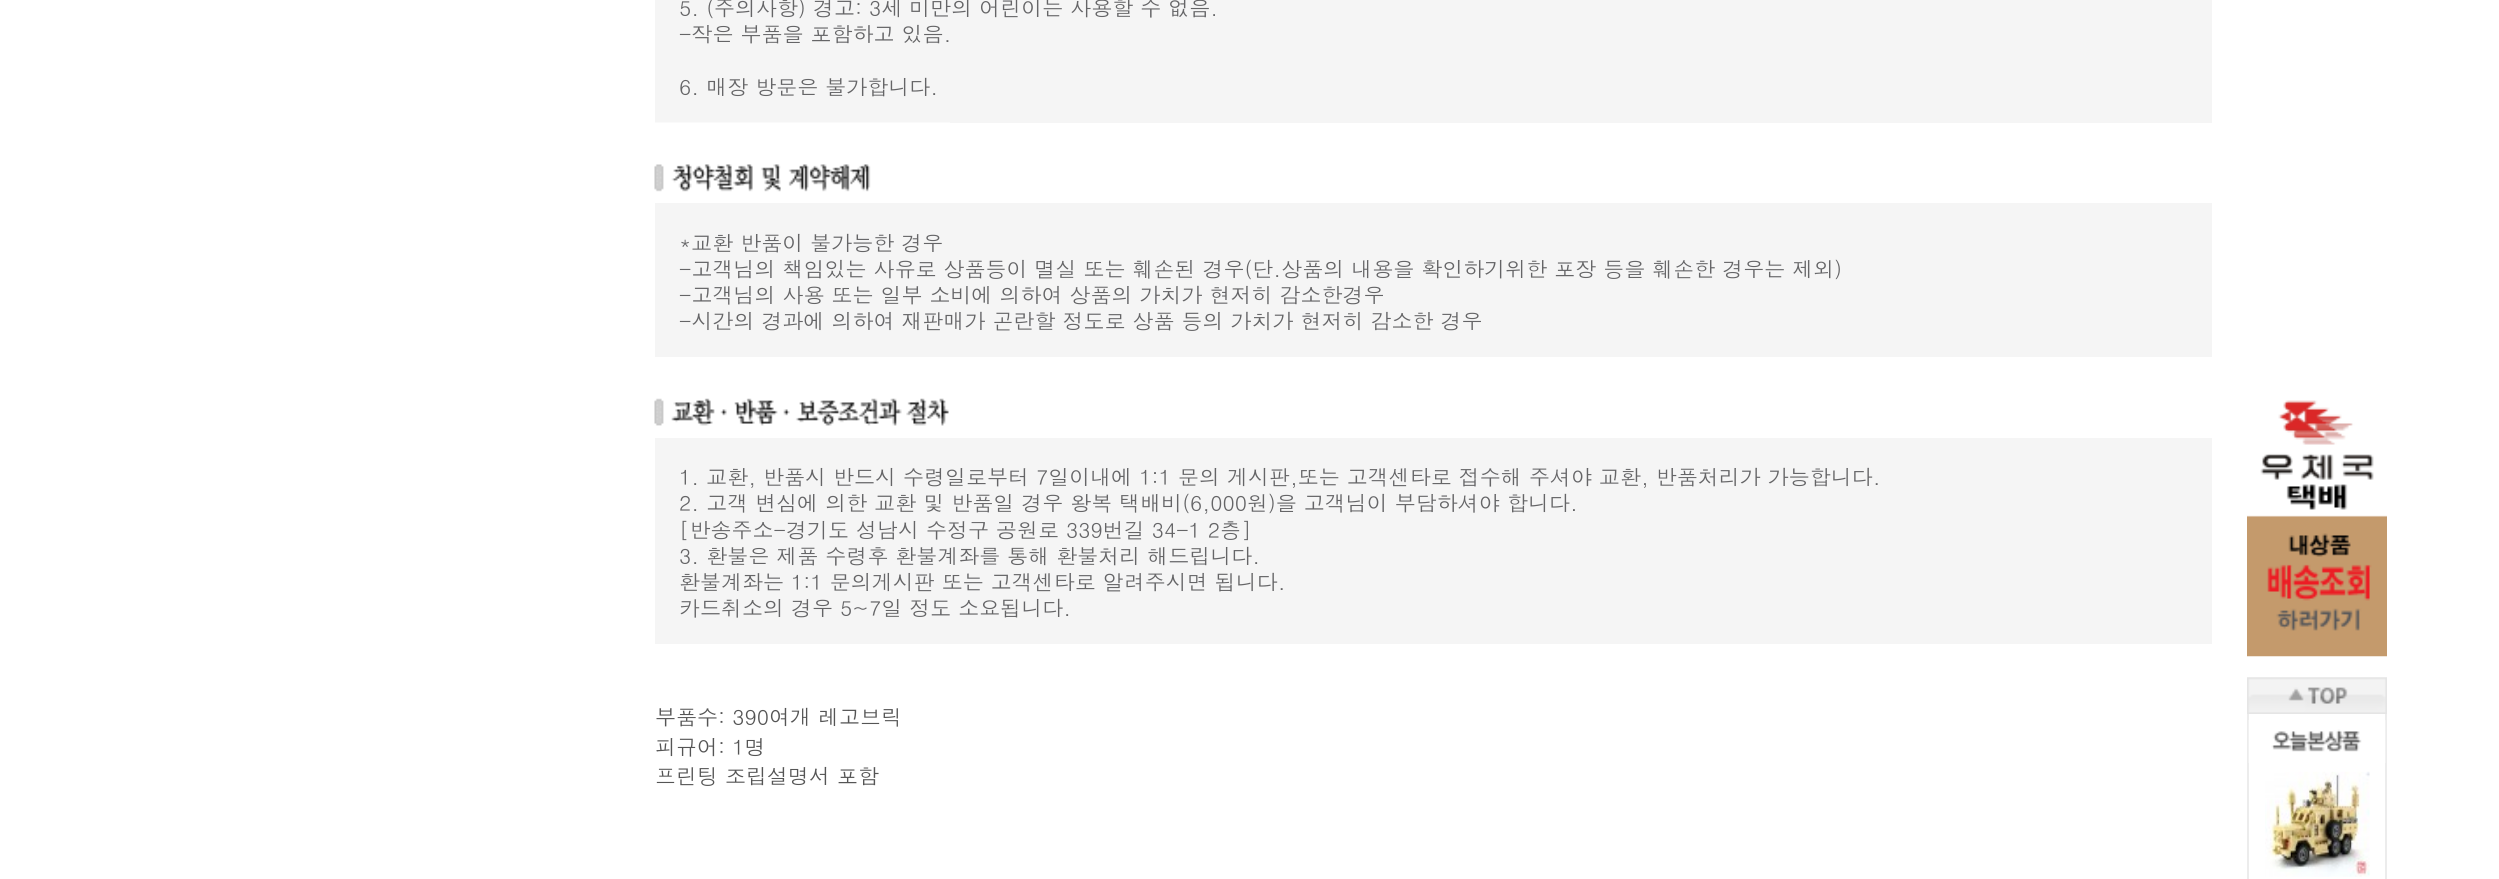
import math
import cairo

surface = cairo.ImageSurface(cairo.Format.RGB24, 2499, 879)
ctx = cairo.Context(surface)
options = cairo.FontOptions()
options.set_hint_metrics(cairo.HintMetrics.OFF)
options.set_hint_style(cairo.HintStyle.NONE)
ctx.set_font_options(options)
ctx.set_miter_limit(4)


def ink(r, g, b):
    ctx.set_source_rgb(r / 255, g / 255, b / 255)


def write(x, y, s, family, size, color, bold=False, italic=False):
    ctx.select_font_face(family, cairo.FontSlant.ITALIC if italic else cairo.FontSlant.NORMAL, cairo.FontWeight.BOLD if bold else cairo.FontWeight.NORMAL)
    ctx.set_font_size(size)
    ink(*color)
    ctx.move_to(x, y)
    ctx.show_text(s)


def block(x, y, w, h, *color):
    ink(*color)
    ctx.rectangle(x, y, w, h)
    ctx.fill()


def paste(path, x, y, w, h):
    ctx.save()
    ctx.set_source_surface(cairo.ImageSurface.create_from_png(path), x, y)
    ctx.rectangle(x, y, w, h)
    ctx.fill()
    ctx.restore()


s1 = dict(family="Dotum", size=21, color=(101, 101, 103))
s2 = dict(family="Dotum", size=21, color=(85, 85, 85))

ink(255, 255, 255)
ctx.paint()
block(655, 0, 1557, 123, 245, 245, 245)
write(679, 16, "5. (주의사항) 경고: 3세 미만의 어린이는 사용할 수 없음.", **s1)
write(679, 42, "-작은 부품을 포함하고 있음.", **s1)
write(679, 95, "6. 매장 방문은 불가합니다.", **s1)
paste("pic1.png", 654, 122, 296, 70)
block(655, 203, 1557, 154, 245, 245, 245)
write(679, 251, "*교환 반품이 불가능한 경우", **s1)
write(679, 277, "-고객님의 책임있는 사유로 상품등이 멸실 또는 훼손된 경우(단.상품의 내용을 확인하기위한 포장 등을 훼손한 경우는 제외)", **s1)
write(679, 303, "-고객님의 사용 또는 일부 소비에 의하여 상품의 가치가 현저히 감소한경우", **s1)
write(679, 329, "-시간의 경과에 의하여 재판매가 곤란할 정도로 상품 등의 가치가 현저히 감소한 경우", **s1)
paste("pic2.png", 654, 398, 295, 28)
block(655, 438, 1557, 206, 245, 245, 245)
write(679, 485, "1. 교환, 반품시 반드시 수령일로부터 7일이내에 1:1 문의 게시판,또는 고객센타로 접수해 주셔야 교환, 반품처리가 가능합니다.", **s1)
write(679, 511, "2. 고객 변심에 의한 교환 및 반품일 경우 왕복 택배비(6,000원)을 고객님이 부담하셔야 합니다.", **s1)
write(679, 538, "[반송주소-경기도 성남시 수정구 공원로 339번길 34-1 2층]", **s1)
write(679, 564, "3. 환불은 제품 수령후 환불계좌를 통해 환불처리 해드립니다.", **s1)
write(679, 590, "환불계좌는 1:1 문의게시판 또는 고객센타로 알려주시면 됩니다.", **s1)
write(679, 616, "카드취소의 경우 5~7일 정도 소요됩니다.", **s1)
write(655, 725, "부품수: 390여개 레고브릭", **s2)
write(655, 755, "피규어: 1명", **s2)
write(655, 784, "프린팅 조립설명서 포함", **s2)
paste("pic3.png", 2247, 400, 140, 257)
block(2385, 711, 2, 168, 236, 236, 236)
block(2247, 711, 2, 168, 236, 236, 236)
paste("pic4.png", 2247, 677, 140, 37)
paste("pic5.png", 2248, 720, 138, 43)
paste("pic6.png", 2265, 771, 105, 106)
surface.write_to_png("screenshot.png")
